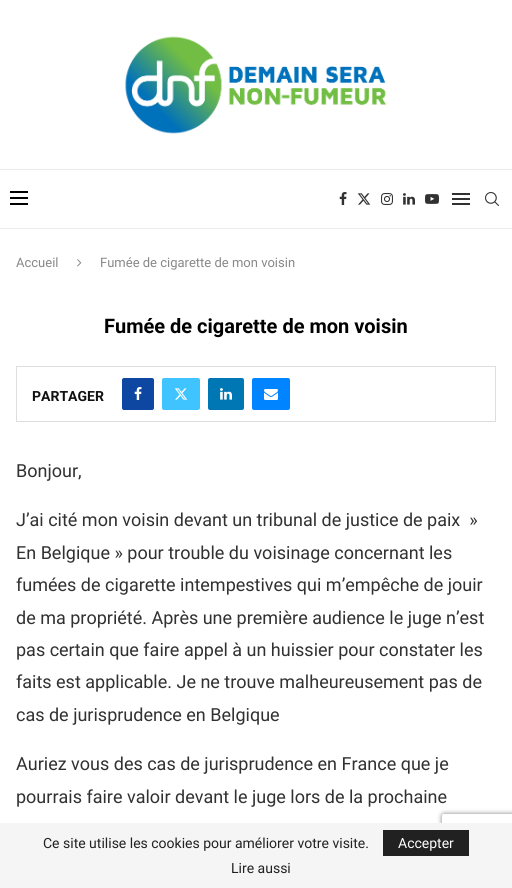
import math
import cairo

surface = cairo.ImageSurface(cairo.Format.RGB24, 512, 888)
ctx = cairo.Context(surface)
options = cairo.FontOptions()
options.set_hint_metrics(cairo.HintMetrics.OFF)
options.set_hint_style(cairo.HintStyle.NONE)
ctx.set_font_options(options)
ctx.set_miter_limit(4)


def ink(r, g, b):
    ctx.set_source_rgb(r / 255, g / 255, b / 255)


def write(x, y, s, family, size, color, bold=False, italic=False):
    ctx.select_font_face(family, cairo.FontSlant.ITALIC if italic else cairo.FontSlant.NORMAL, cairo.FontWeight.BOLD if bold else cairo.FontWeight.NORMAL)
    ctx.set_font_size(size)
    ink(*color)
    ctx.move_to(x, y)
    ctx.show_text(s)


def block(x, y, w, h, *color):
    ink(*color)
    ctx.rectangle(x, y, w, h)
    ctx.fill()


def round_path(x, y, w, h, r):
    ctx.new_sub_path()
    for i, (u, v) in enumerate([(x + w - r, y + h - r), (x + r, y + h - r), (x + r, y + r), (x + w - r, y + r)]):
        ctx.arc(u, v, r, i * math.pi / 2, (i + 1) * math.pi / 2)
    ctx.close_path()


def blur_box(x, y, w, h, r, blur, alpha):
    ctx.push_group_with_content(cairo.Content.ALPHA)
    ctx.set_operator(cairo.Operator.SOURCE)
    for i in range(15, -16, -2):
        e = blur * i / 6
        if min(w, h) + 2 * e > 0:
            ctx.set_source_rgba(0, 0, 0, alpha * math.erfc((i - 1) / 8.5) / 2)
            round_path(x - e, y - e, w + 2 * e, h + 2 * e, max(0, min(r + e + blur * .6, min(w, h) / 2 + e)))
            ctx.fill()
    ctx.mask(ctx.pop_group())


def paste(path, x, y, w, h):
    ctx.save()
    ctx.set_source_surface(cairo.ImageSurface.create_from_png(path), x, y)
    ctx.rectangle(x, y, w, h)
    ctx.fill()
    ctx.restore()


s1 = dict(family="Roboto", size=13, color=(136, 136, 136))
s2 = dict(family="Roboto", size=20, color=(0, 0, 0), bold=True)
s3 = dict(family="Roboto", size=14, color=(17, 17, 17), bold=True)
s4 = dict(family="Roboto", size=18, color=(49, 49, 49))
s5 = dict(family="Roboto", size=14, color=(33, 33, 33))
s6 = dict(family="Roboto", size=14, color=(255, 255, 255))

ink(255, 255, 255)
ctx.paint()
paste("pic1.png", 125, 36, 262, 98)
block(0, 169, 512, 1, 236, 236, 236)
block(0, 228, 512, 1, 236, 236, 236)
block(10, 191, 18, 2, 0, 0, 0)
block(10, 197, 18, 2, 0, 0, 0)
block(10, 203, 18, 2, 0, 0, 0)
paste("pic2.png", 339, 192, 8, 13)
paste("pic3.png", 357, 193, 14, 12)
paste("pic4.png", 381, 193, 12, 12)
paste("pic5.png", 403, 193, 12, 12)
paste("pic6.png", 425, 194, 14, 10)
block(452, 193, 18, 2, 49, 49, 49)
block(452, 203, 18, 2, 49, 49, 49)
block(452, 198, 18, 2, 49, 49, 49)
paste("pic7.png", 485, 192, 14, 14)
write(16, 267, "Accueil", **s1)
paste("pic8.png", 77, 259, 5, 8)
write(100, 267, "Fumée de cigarette de mon voisin", **s1)
write(104, 333, "Fumée de cigarette de mon voisin", **s2)
ctx.rectangle(16.5, 366.5, 479, 55)
ink(222, 222, 222)
ctx.set_line_width(1)
ctx.stroke()
write(32, 401, "PARTAGER", **s3)
ink(13, 71, 161)
round_path(122, 378, 32, 32, 2)
ctx.fill()
paste("pic9.png", 134, 387, 8, 13)
ink(64, 196, 255)
round_path(162, 378, 38, 32, 2)
ctx.fill()
paste("pic10.png", 174, 388, 14, 12)
ink(0, 119, 181)
round_path(208, 378, 36, 32, 2)
ctx.fill()
paste("pic11.png", 220, 388, 12, 12)
ink(0, 132, 255)
round_path(252, 378, 38, 32, 2)
ctx.fill()
paste("pic12.png", 264, 389, 14, 11)
write(16, 477, "Bonjour,", **s4)
write(16, 526, "J’ai cité mon voisin devant un tribunal de justice de paix  »", **s4)
write(16, 559, "En Belgique » pour trouble du voisinage concernant les", **s4)
write(16, 591, "fumées de cigarette intempestives qui m’empêche de jouir", **s4)
write(16, 624, "de ma propriété. Après une première audience le juge n’est", **s4)
write(16, 656, "pas certain que faire appel à un huissier pour constater les", **s4)
write(16, 688, "faits est applicable. Je ne trouve malheureusement pas de", **s4)
write(16, 721, "cas de jurisprudence en Belgique", **s4)
write(16, 770, "Auriez vous des cas de jurisprudence en France que je", **s4)
write(16, 803, "pourrais faire valoir devant le juge lors de la prochaine", **s4)
ctx.save()
ctx.set_fill_rule(cairo.FillRule.EVEN_ODD)
ctx.new_path()
ctx.move_to(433, 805)
ctx.line_to(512, 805)
ctx.line_to(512, 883)
ctx.line_to(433, 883)
ctx.close_path()
ctx.move_to(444, 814)
ctx.line_to(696, 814)
ctx.curve_to(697, 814, 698, 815, 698, 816)
ctx.line_to(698, 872)
ctx.curve_to(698, 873, 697, 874, 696, 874)
ctx.line_to(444, 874)
ctx.curve_to(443, 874, 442, 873, 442, 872)
ctx.line_to(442, 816)
ctx.curve_to(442, 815, 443, 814, 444, 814)
ctx.close_path()
ctx.clip()
ink(128, 128, 128)
blur_box(442, 814, 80, 60, 2, 2.5, 1)
ctx.restore()
block(0, 823, 512, 65, 245, 245, 245)
write(43, 848, "Ce site utilise les cookies pour améliorer votre visite.", **s5)
block(383, 830, 86, 26, 33, 33, 33)
write(398, 848, "Accepter", **s6)
write(231, 873, "Lire aussi", **s5)
surface.write_to_png("screenshot.png")
